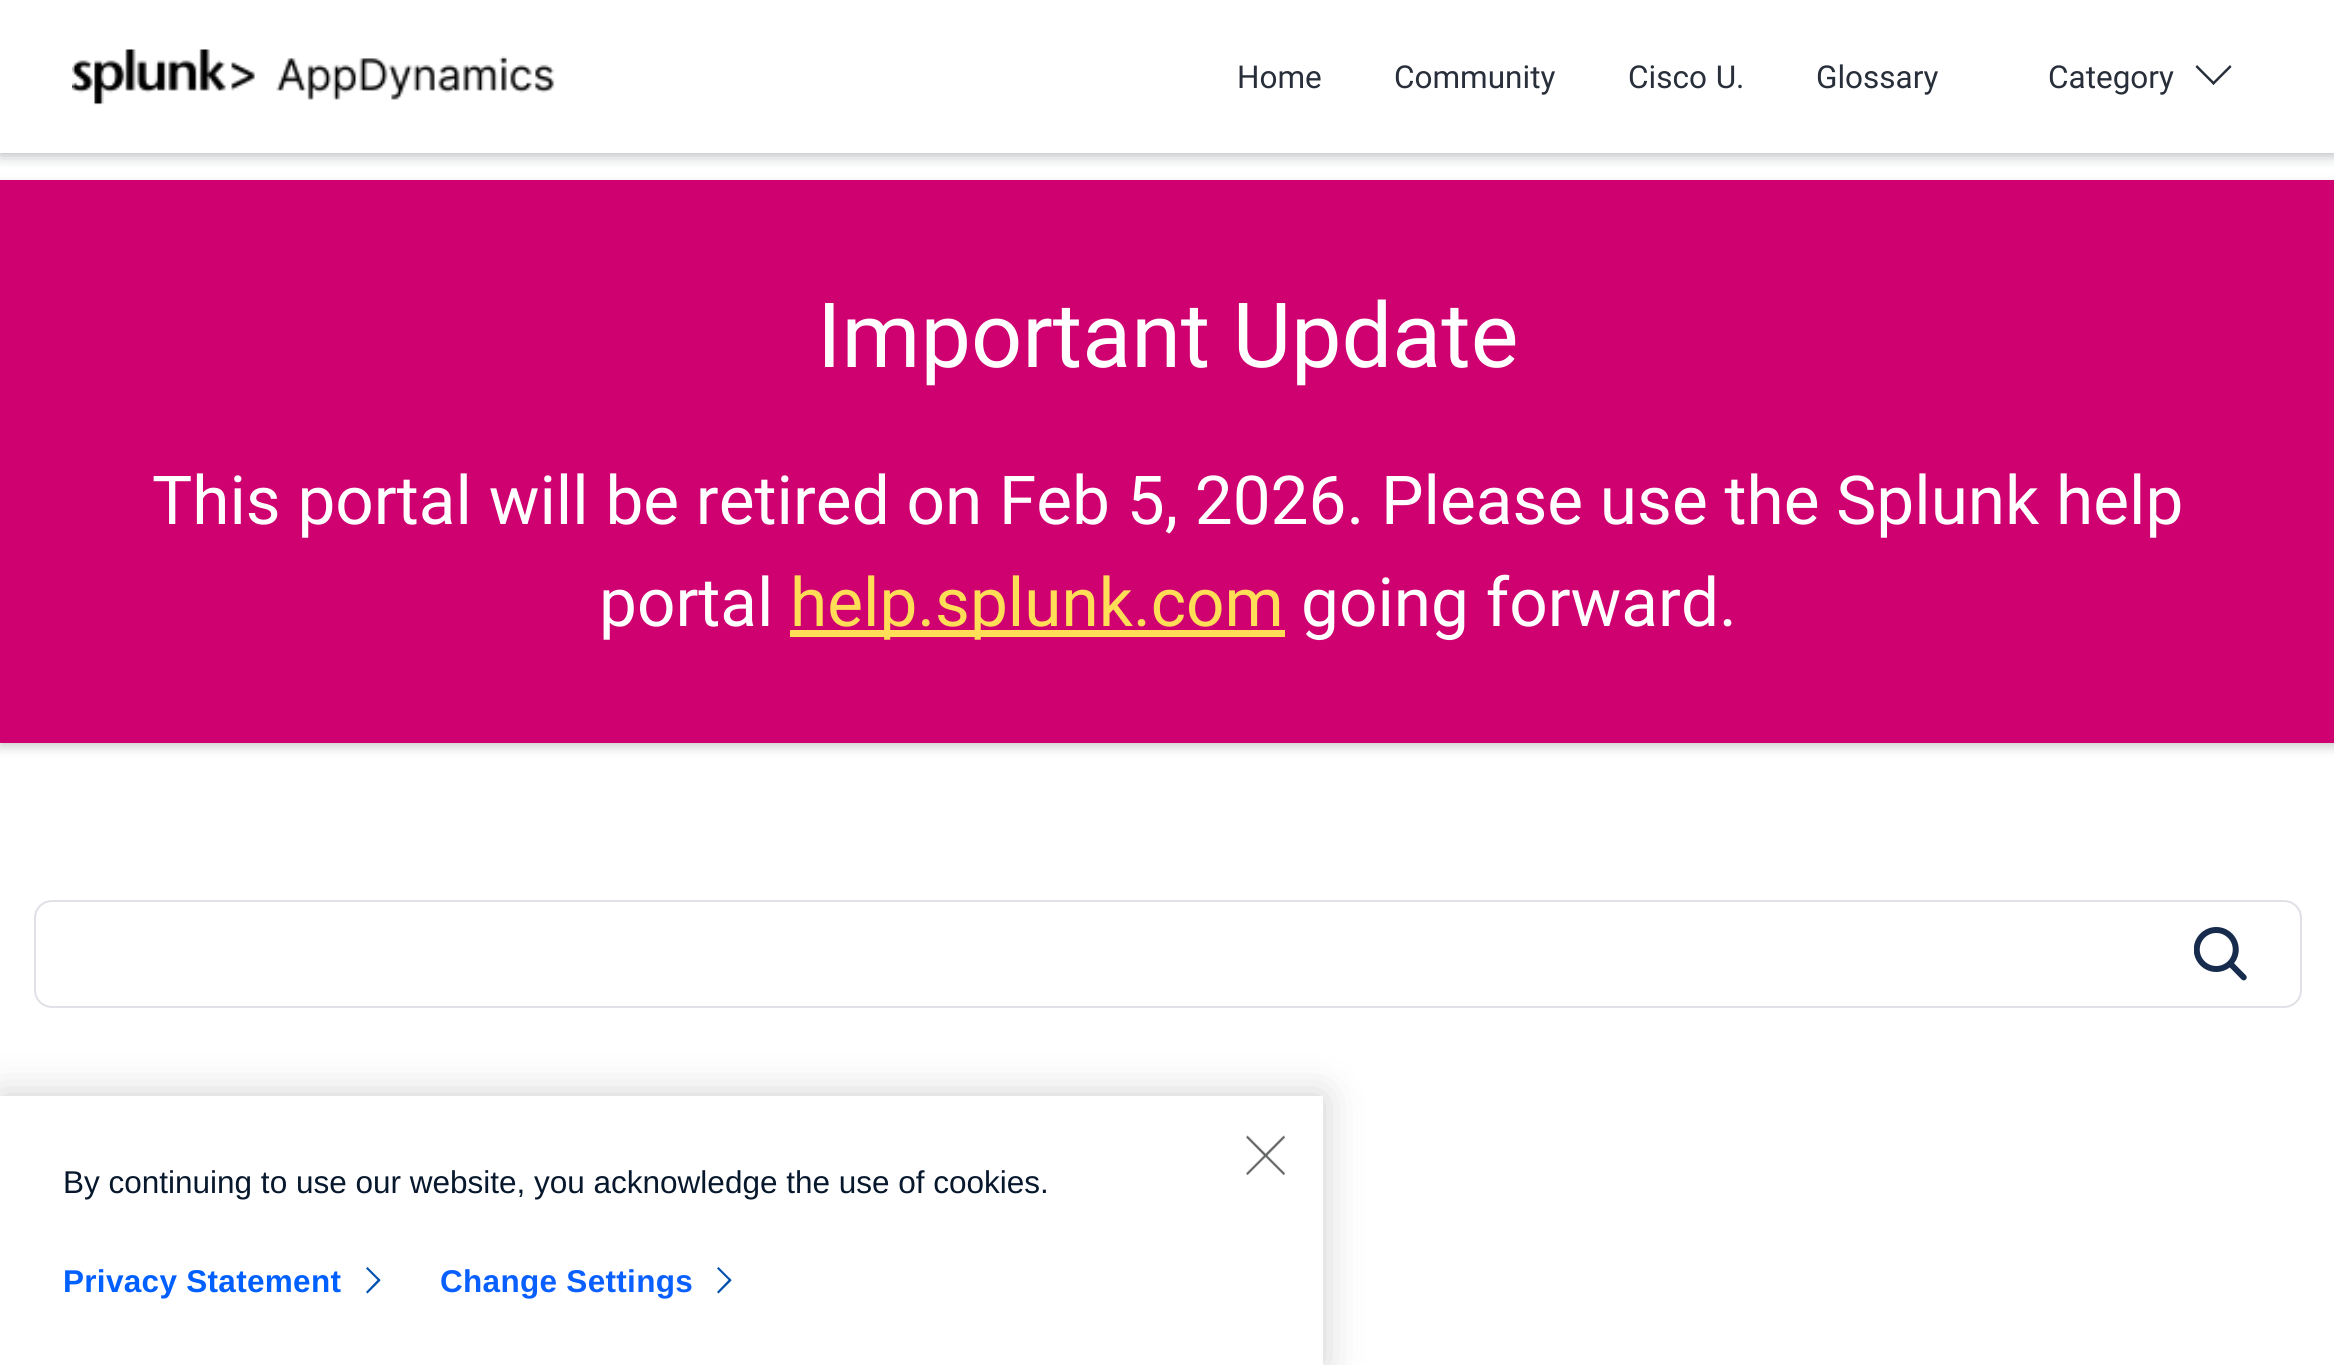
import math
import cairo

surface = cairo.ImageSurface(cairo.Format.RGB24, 2334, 1365)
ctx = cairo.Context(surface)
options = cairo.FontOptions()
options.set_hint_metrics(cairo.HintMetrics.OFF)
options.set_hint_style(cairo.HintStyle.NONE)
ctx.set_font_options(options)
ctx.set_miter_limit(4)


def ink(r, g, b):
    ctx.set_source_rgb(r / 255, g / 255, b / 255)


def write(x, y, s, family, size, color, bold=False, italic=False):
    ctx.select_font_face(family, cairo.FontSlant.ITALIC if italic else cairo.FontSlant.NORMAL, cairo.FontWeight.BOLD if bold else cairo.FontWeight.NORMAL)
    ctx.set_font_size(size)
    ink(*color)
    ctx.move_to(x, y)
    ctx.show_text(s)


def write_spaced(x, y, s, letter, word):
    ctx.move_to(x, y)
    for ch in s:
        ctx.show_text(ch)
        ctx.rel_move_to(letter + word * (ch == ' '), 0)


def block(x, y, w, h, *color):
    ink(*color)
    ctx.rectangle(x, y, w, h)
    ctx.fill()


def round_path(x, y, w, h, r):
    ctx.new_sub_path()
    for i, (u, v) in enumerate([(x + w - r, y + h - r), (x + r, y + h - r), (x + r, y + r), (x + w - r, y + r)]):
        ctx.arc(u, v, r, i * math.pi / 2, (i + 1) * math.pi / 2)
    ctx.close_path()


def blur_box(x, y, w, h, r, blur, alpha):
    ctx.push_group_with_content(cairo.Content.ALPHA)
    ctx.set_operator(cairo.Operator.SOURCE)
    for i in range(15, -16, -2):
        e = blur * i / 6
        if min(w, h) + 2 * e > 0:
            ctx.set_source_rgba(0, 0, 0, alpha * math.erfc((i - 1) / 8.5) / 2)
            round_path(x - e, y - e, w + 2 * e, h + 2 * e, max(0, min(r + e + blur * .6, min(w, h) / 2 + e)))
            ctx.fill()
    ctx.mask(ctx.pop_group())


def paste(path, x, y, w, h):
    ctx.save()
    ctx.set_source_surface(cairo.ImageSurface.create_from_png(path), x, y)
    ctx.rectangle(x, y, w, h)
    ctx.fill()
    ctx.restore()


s1 = dict(family="Roboto", size=31.5, color=(40, 47, 58))
s2 = dict(family="Roboto", size=90, color=(255, 255, 255))
s3 = dict(family="Roboto", size=67.5, color=(255, 255, 255))
s4 = dict(family="Roboto", size=67.5, color=(255, 221, 87))
s5 = dict(family="Liberation Sans", size=31.5, color=(7, 24, 45))

ink(255, 255, 255)
ctx.paint()
ctx.save()
ctx.rectangle(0, 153, 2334, 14)
ctx.clip()
ink(59, 72, 79)
blur_box(0, 0, 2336, 153, 0, 8, 0.5)
ctx.restore()
paste("pic1.png", 72, 49, 483, 56)
write(1237, 88, "Home", **s1)
write(1394, 88, "Community", **s1)
write_spaced(1628, 88, "Cisco U.", 0, 1)
write(1816, 88, "Glossary", **s1)
write(2048, 88, "Category", **s1)
ctx.new_path()
ctx.move_to(2231.5, 67)
ctx.line_to(2213.5, 85)
ctx.line_to(2212, 83)
ctx.line_to(2230, 65)
ctx.close_path()
ctx.fill()
ctx.new_path()
ctx.move_to(2215, 83)
ctx.line_to(2213.5, 85)
ctx.line_to(2195.5, 67)
ctx.line_to(2197, 65)
ctx.close_path()
ctx.fill()
ink(0, 0, 0)
blur_box(0, 185, 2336, 562, 0, 5.5, 0.2)
block(0, 180, 2334, 563, 207, 0, 112)
write(817, 367, "Important Update", **s2)
write(152, 524, "This portal will be retired on Feb 5, 2026. Please use the Splunk help", **s3)
write(599, 626, "portal", **s3)
block(790, 630, 495, 7, 255, 221, 87)
write(790, 626, "help.splunk.com", **s4)
write(1301, 626, "going forward.", **s3)
round_path(35, 901, 2266, 106, 17)
ink(223, 225, 230)
ctx.stroke()
paste("pic2.png", 2194, 927, 53, 54)
ctx.save()
ctx.set_fill_rule(cairo.FillRule.EVEN_ODD)
ctx.new_path()
ctx.move_to(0, 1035)
ctx.line_to(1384, 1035)
ctx.line_to(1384, 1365)
ctx.line_to(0, 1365)
ctx.close_path()
ctx.move_to(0, 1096)
ctx.line_to(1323, 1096)
ctx.line_to(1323, 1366)
ctx.line_to(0, 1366)
ctx.close_path()
ctx.clip()
ink(0, 0, 0)
blur_box(0, 1096, 1323, 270, 0, 20, 0.2)
ctx.restore()
paste("pic3.png", 1246, 1135, 39, 41)
write(63, 1193, "By continuing to use our website, you acknowledge the use of cookies.", **s5)
ctx.select_font_face("Liberation Sans", cairo.FontSlant.NORMAL, cairo.FontWeight.BOLD)
ink(0, 96, 255)
write_spaced(63, 1292, "Privacy Statement", 0.3, 0)
ink(0, 81, 175)
ctx.new_path()
ctx.move_to(367.5, 1293.5)
ctx.line_to(366, 1292)
ctx.line_to(377.5, 1280)
ctx.line_to(366, 1268.5)
ctx.line_to(367.5, 1267)
ctx.line_to(378, 1277.5)
ctx.curve_to(378.5, 1278, 381.5, 1280, 380, 1281)
ctx.close_path()
ctx.fill()
ink(10, 96, 255)
write_spaced(440, 1292, "Change Settings", 0.3, 0)
ink(0, 81, 175)
ctx.new_path()
ctx.move_to(718.5, 1293.5)
ctx.line_to(717, 1292)
ctx.line_to(728.5, 1280)
ctx.line_to(717, 1268.5)
ctx.line_to(718.5, 1267)
ctx.line_to(729, 1277.5)
ctx.curve_to(729.5, 1278, 732.5, 1280, 731, 1281)
ctx.close_path()
ctx.fill()
surface.write_to_png("screenshot.png")
